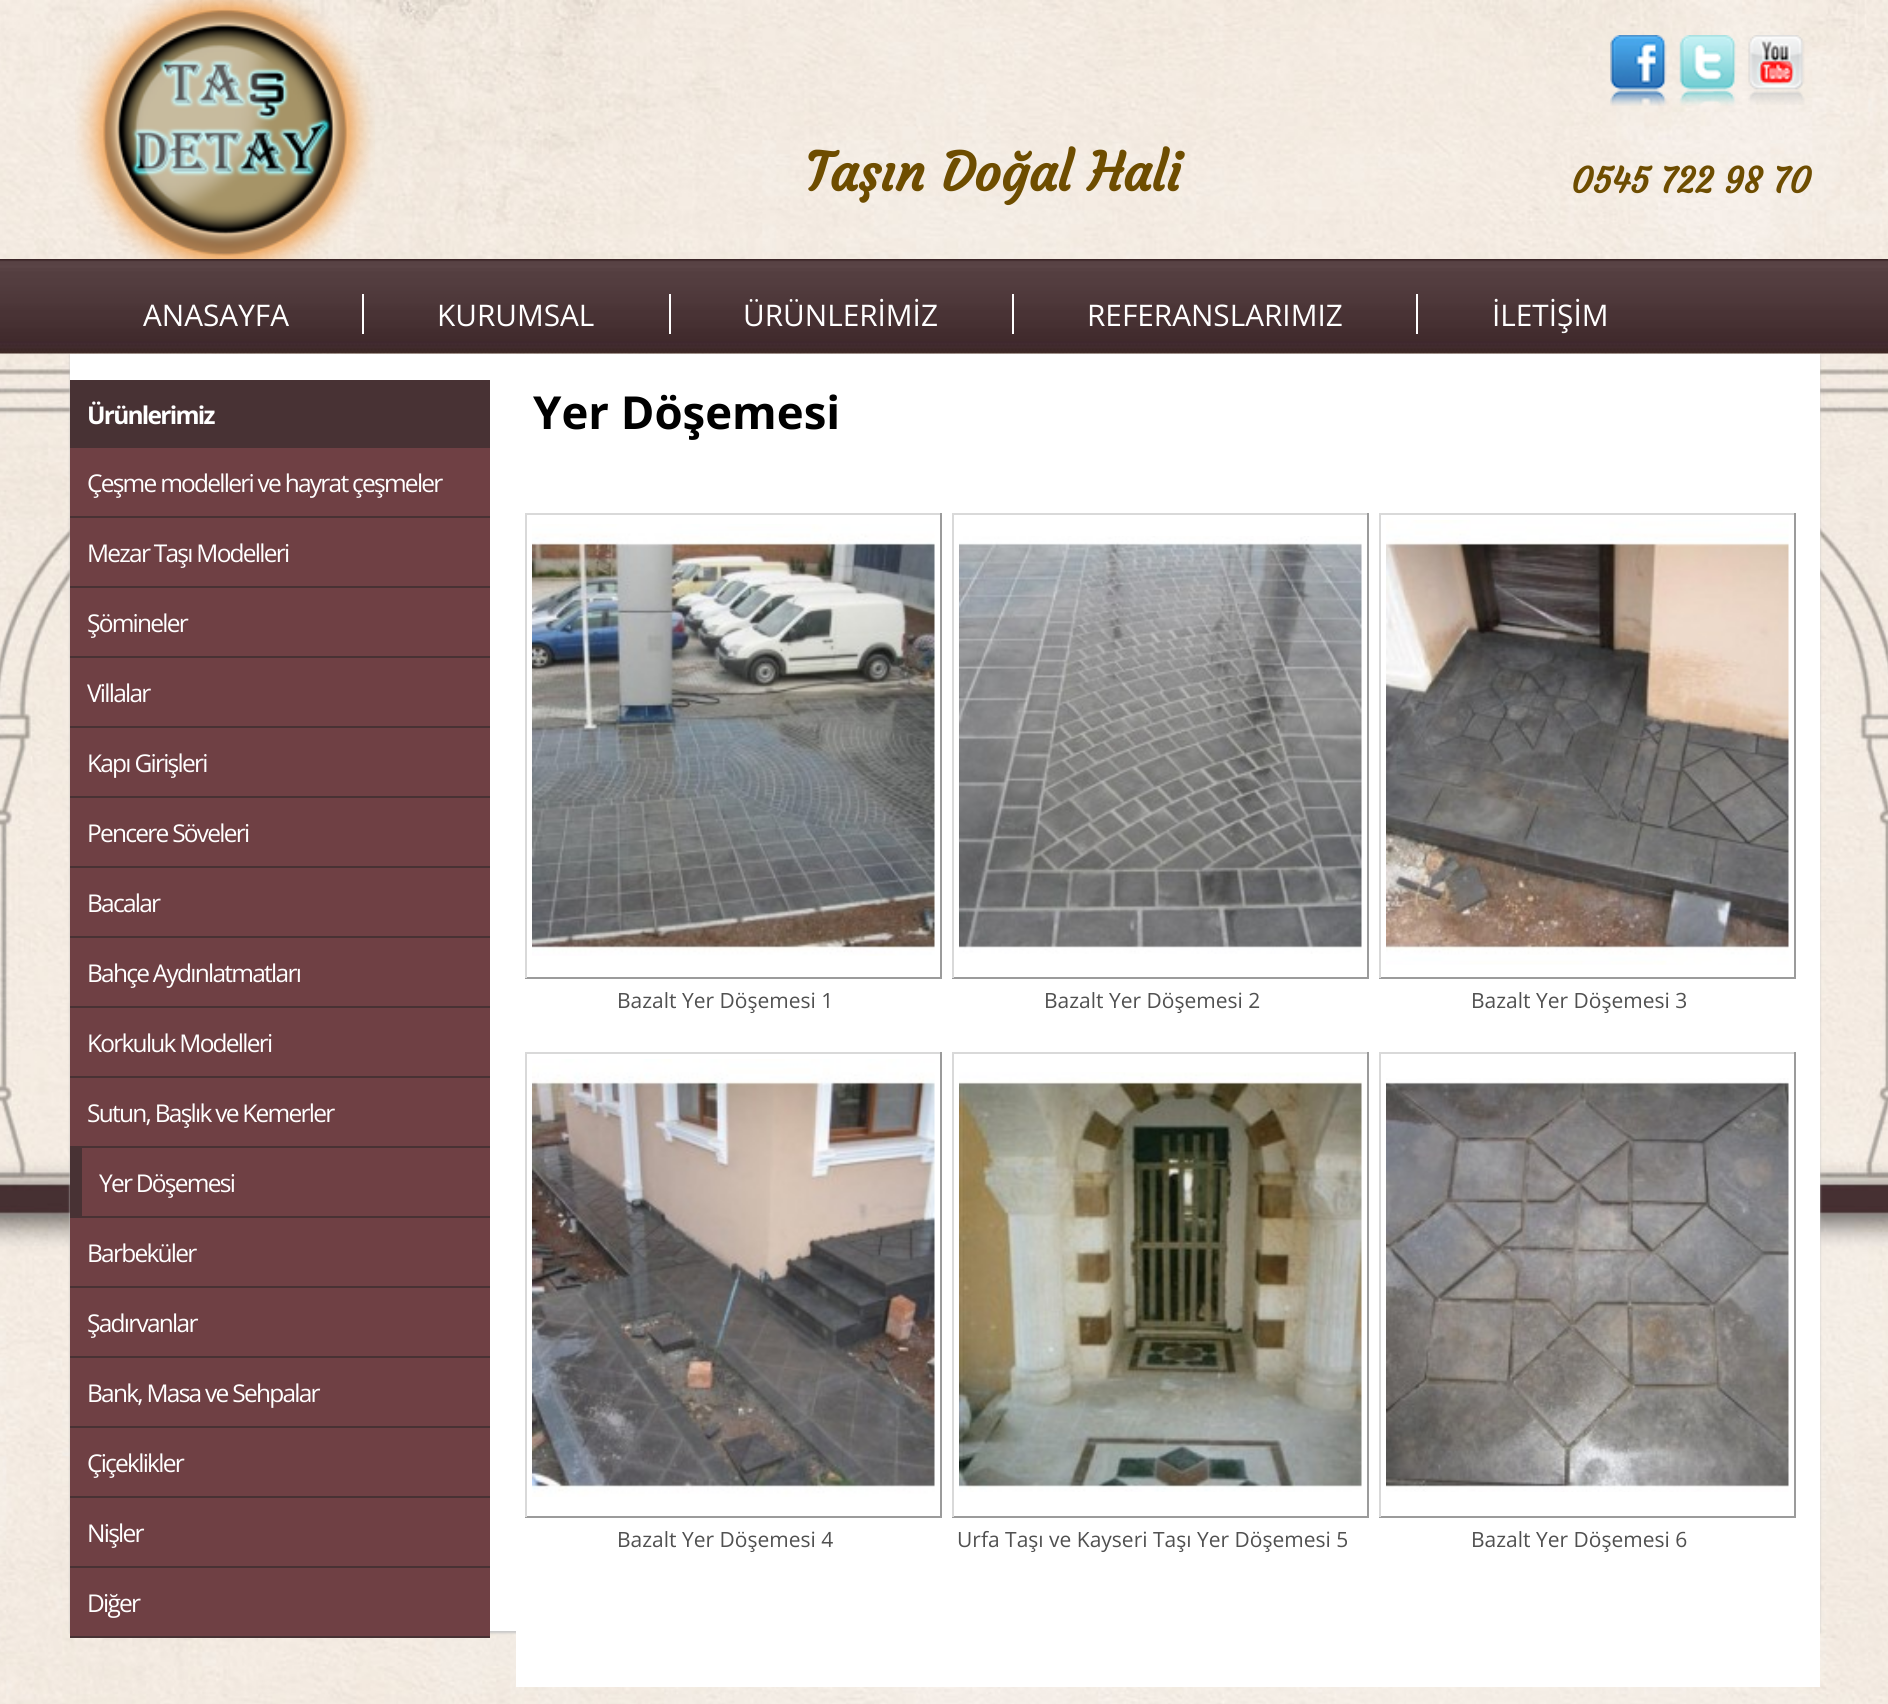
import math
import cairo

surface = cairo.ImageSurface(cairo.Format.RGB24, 1888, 1704)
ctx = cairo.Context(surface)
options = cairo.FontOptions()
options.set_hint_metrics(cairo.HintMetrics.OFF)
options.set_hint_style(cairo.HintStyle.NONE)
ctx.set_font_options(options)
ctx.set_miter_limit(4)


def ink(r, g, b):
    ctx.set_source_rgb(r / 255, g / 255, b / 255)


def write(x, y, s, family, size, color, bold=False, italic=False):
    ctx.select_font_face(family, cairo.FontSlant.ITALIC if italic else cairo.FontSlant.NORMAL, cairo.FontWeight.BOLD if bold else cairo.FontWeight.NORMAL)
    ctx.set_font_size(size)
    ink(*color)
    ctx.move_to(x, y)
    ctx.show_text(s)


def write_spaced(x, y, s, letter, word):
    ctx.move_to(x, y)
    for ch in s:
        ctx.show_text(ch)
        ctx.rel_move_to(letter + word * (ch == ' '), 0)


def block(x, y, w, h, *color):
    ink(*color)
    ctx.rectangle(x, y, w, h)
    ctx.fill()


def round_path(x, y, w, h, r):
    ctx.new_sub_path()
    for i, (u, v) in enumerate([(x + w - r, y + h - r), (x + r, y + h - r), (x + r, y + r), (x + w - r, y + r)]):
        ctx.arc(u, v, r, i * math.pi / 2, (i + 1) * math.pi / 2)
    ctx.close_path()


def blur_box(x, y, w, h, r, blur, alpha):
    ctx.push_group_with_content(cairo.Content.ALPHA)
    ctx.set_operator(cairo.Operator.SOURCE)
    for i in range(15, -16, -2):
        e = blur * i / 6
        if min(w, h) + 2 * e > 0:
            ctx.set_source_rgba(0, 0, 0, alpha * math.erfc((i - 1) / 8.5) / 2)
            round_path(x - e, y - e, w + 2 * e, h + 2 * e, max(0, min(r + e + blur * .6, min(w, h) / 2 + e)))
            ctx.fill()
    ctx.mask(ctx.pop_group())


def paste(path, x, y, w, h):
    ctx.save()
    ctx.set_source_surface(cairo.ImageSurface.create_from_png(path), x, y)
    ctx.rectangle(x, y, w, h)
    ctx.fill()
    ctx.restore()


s1 = dict(family="Courgette", size=52.5, color=(110, 77, 0), bold=True)
s2 = dict(family="Courgette", size=35, color=(110, 77, 0), bold=True)
s3 = dict(family="Open Sans", size=29.75, color=(255, 255, 255))
s4 = dict(family="Open Sans", size=45.5, color=(0, 0, 0), bold=True)
s5 = dict(family="Open Sans", size=21, color=(80, 80, 80))

ink(255, 255, 255)
ctx.paint()
paste("pic1.png", 0, 0, 1888, 1704)
paste("pic2.png", 75, 0, 300, 259)
paste("pic3.png", 1610, 35, 57, 71)
paste("pic4.png", 1679, 35, 57, 71)
paste("pic5.png", 1748, 35, 57, 70)
write(805, 191, "Taşın Doğal Hali", **s1)
write(1571, 193, "0545 722 98 70", **s2)
paste("pic6.png", 0, 259, 1888, 95)
block(362, 294, 2, 40, 255, 255, 255)
write(143, 326, "ANASAYFA", **s3)
block(669, 294, 2, 40, 255, 255, 255)
write(437, 326, "KURUMSAL", **s3)
block(1012, 294, 2, 40, 255, 255, 255)
write(743, 326, "ÜRÜNLERİMİZ", **s3)
block(1416, 294, 2, 40, 255, 255, 255)
write(1087, 326, "REFERANSLARIMIZ", **s3)
write(1492, 326, "İLETİŞİM", **s3)
ink(200, 200, 200)
blur_box(70, 355, 1750, 1278, 0, 1, 1)
block(70, 354, 1750, 1277, 255, 255, 255)
block(70, 380, 420, 68, 72, 50, 52)
ctx.select_font_face("Open Sans", cairo.FontSlant.NORMAL, cairo.FontWeight.BOLD)
ctx.set_font_size(24.5)
ink(255, 255, 255)
write_spaced(87, 424, "Ürünlerimiz", -1.75, 0)
block(70, 448, 420, 68, 111, 64, 68)
block(70, 516, 420, 2, 72, 50, 52)
ctx.select_font_face("Open Sans")
ink(255, 255, 255)
write_spaced(87, 492, "Çeşme modelleri ve hayrat çeşmeler", -1.75, 0)
block(70, 518, 420, 68, 111, 64, 68)
block(70, 586, 420, 2, 72, 50, 52)
ink(255, 255, 255)
write_spaced(87, 562, "Mezar Taşı Modelleri", -1.75, 0)
block(70, 588, 420, 68, 111, 64, 68)
block(70, 656, 420, 2, 72, 50, 52)
ink(255, 255, 255)
write_spaced(87, 632, "Şömineler", -1.75, 0)
block(70, 658, 420, 68, 111, 64, 68)
block(70, 726, 420, 2, 72, 50, 52)
ink(255, 255, 255)
write_spaced(87, 702, "Villalar", -1.75, 0)
block(70, 728, 420, 68, 111, 64, 68)
block(70, 796, 420, 2, 72, 50, 52)
ink(255, 255, 255)
write_spaced(87, 772, "Kapı Girişleri", -1.75, 0)
block(70, 798, 420, 68, 111, 64, 68)
block(70, 866, 420, 2, 72, 50, 52)
ink(255, 255, 255)
write_spaced(87, 842, "Pencere Söveleri", -1.75, 0)
block(70, 868, 420, 68, 111, 64, 68)
block(70, 936, 420, 2, 72, 50, 52)
ink(255, 255, 255)
write_spaced(87, 912, "Bacalar", -1.75, 0)
block(70, 938, 420, 68, 111, 64, 68)
block(70, 1006, 420, 2, 72, 50, 52)
ink(255, 255, 255)
write_spaced(87, 982, "Bahçe Aydınlatmatları", -1.75, 0)
block(70, 1008, 420, 68, 111, 64, 68)
block(70, 1076, 420, 2, 72, 50, 52)
ink(255, 255, 255)
write_spaced(87, 1052, "Korkuluk Modelleri", -1.75, 0)
block(70, 1078, 420, 68, 111, 64, 68)
block(70, 1146, 420, 2, 72, 50, 52)
ink(255, 255, 255)
write_spaced(87, 1122, "Sutun, Başlık ve Kemerler", -1.75, 0)
block(82, 1148, 408, 68, 111, 64, 68)
block(82, 1216, 408, 2, 72, 50, 52)
block(70, 1148, 12, 70, 72, 50, 52)
ink(255, 255, 255)
write_spaced(99, 1192, "Yer Döşemesi", -1.75, 0)
block(70, 1218, 420, 68, 111, 64, 68)
block(70, 1286, 420, 2, 72, 50, 52)
ink(255, 255, 255)
write_spaced(87, 1262, "Barbeküler", -1.75, 0)
block(70, 1288, 420, 68, 111, 64, 68)
block(70, 1356, 420, 2, 72, 50, 52)
ink(255, 255, 255)
write_spaced(87, 1332, "Şadırvanlar", -1.75, 0)
block(70, 1358, 420, 68, 111, 64, 68)
block(70, 1426, 420, 2, 72, 50, 52)
ink(255, 255, 255)
write_spaced(87, 1402, "Bank, Masa ve Sehpalar", -1.75, 0)
block(70, 1428, 420, 68, 111, 64, 68)
block(70, 1496, 420, 2, 72, 50, 52)
ink(255, 255, 255)
write_spaced(87, 1472, "Çiçeklikler", -1.75, 0)
block(70, 1498, 420, 68, 111, 64, 68)
block(70, 1566, 420, 2, 72, 50, 52)
ink(255, 255, 255)
write_spaced(87, 1542, "Nişler", -1.75, 0)
block(70, 1568, 420, 68, 111, 64, 68)
block(70, 1636, 420, 2, 72, 50, 52)
ink(255, 255, 255)
write_spaced(87, 1612, "Diğer", -1.75, 0)
block(516, 1631, 1304, 56, 255, 255, 255)
write(533, 429, "Yer Döşemesi", **s4)
block(525, 513, 417, 2, 217, 217, 217)
block(940, 513, 2, 465, 155, 155, 155)
block(525, 977, 417, 2, 155, 155, 155)
block(525, 513, 2, 465, 217, 217, 217)
paste("pic7.png", 532, 524, 403, 432)
write(617, 1008, "Bazalt Yer Döşemesi 1", **s5)
block(952, 513, 417, 2, 217, 217, 217)
block(1367, 513, 2, 465, 155, 155, 155)
block(952, 977, 417, 2, 155, 155, 155)
block(952, 513, 2, 465, 217, 217, 217)
paste("pic8.png", 959, 536, 403, 418)
write(1044, 1008, "Bazalt Yer Döşemesi 2", **s5)
block(1379, 513, 417, 2, 217, 217, 217)
block(1794, 513, 2, 465, 155, 155, 155)
block(1379, 977, 417, 2, 155, 155, 155)
block(1379, 513, 2, 465, 217, 217, 217)
paste("pic9.png", 1386, 520, 403, 445)
write(1471, 1008, "Bazalt Yer Döşemesi 3", **s5)
block(525, 1052, 417, 2, 217, 217, 217)
block(940, 1052, 2, 465, 155, 155, 155)
block(525, 1516, 417, 2, 155, 155, 155)
block(525, 1052, 2, 465, 217, 217, 217)
paste("pic10.png", 532, 1059, 403, 438)
write(617, 1547, "Bazalt Yer Döşemesi 4", **s5)
block(952, 1052, 417, 2, 217, 217, 217)
block(1367, 1052, 2, 465, 155, 155, 155)
block(952, 1516, 417, 2, 155, 155, 155)
block(952, 1052, 2, 465, 217, 217, 217)
paste("pic11.png", 959, 1072, 403, 420)
write(957, 1547, "Urfa Taşı ve Kayseri Taşı Yer Döşemesi 5", **s5)
block(1379, 1052, 417, 2, 217, 217, 217)
block(1794, 1052, 2, 465, 155, 155, 155)
block(1379, 1516, 417, 2, 155, 155, 155)
block(1379, 1052, 2, 465, 217, 217, 217)
paste("pic12.png", 1386, 1078, 403, 414)
write(1471, 1547, "Bazalt Yer Döşemesi 6", **s5)
surface.write_to_png("screenshot.png")
